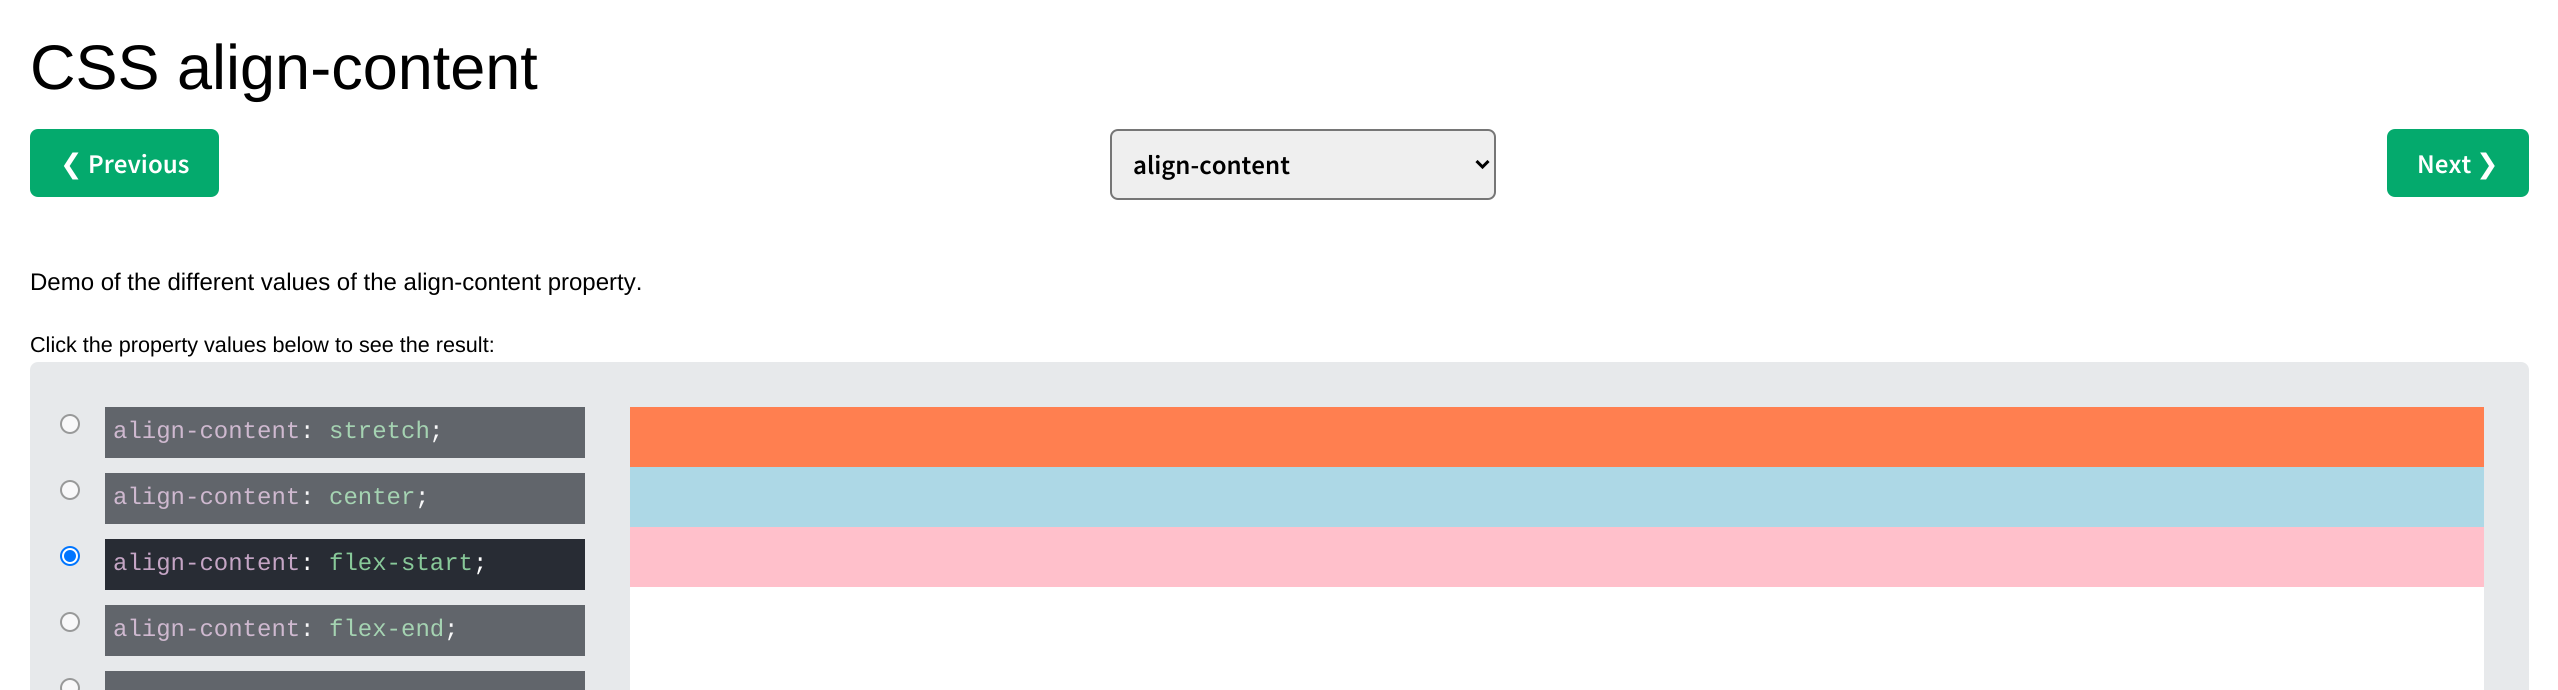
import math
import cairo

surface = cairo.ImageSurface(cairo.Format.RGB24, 2558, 690)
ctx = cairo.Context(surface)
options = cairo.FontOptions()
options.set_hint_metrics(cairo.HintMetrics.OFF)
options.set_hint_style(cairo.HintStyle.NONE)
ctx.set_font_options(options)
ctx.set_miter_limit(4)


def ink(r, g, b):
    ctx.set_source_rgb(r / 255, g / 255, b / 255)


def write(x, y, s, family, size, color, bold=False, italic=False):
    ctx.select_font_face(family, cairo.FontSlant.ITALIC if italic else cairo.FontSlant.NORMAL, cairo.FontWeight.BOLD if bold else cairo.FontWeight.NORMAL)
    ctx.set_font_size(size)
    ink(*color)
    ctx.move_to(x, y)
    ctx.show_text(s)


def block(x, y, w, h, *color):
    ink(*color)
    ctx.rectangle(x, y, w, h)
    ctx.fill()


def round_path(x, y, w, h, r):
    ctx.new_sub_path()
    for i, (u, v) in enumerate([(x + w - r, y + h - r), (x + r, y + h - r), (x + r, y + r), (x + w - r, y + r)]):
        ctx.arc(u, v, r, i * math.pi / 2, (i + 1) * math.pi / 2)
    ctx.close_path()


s1 = dict(family="Liberation Sans", size=63, color=(0, 0, 0))
s2 = dict(family="DejaVu Sans", size=27, color=(255, 255, 255))
s3 = dict(family="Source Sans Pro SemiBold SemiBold", size=27, color=(255, 255, 255))
s4 = dict(family="Source Sans Pro SemiBold SemiBold", size=27, color=(0, 0, 0))
s5 = dict(family="Liberation Sans", size=24, color=(0, 0, 0))
s6 = dict(family="Liberation Sans", size=21.6, color=(0, 0, 0))
s7 = dict(family="Liberation Mono", size=24, color=(207, 185, 208))
s8 = dict(family="Liberation Mono", size=24, color=(248, 248, 249))
s9 = dict(family="Liberation Mono", size=24, color=(165, 211, 178))
s10 = dict(family="Liberation Mono", size=24, color=(197, 165, 197))
s11 = dict(family="Liberation Mono", size=24, color=(255, 255, 255))
s12 = dict(family="Liberation Mono", size=24, color=(136, 201, 153))

ink(255, 255, 255)
ctx.paint()
write(30, 89, "CSS align-content", **s1)
ink(4, 170, 109)
round_path(31, 130, 187, 66, 7)
ctx.fill_preserve()
ctx.stroke()
write(60, 173, "❮", **s2)
write(88, 173, "Previous", **s3)
ink(239, 239, 239)
round_path(1111, 130, 384, 69, 7)
ctx.fill_preserve()
ink(118, 118, 118)
ctx.stroke()
ctx.new_path()
ctx.move_to(1476.5, 161)
ctx.line_to(1482.5, 167)
ctx.line_to(1488.5, 161)
ink(0, 0, 0)
ctx.set_line_width(3)
ctx.stroke()
write(1133, 174, "align-content", **s4)
ink(4, 170, 109)
round_path(2388, 130, 140, 66, 7)
ctx.fill_preserve()
ctx.set_line_width(2)
ctx.stroke()
write(2417, 173, "Next", **s3)
write(2476, 173, "❯", **s2)
write(30, 290, "Demo of the different values of the align-content property.", **s5)
write(30, 352, "Click the property values below to see the result:", **s6)
ink(231, 233, 235)
round_path(30, 362, 2499, 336, 8)
ctx.fill()
block(105, 407, 480, 51, 97, 101, 107)
ink(248, 248, 249)
ctx.arc(70, 424, 9, 0, 2 * math.pi)
ctx.fill_preserve()
ink(152, 153, 153)
ctx.stroke()
write(113, 438, "align-content", **s7)
write(300, 438, ":", **s8)
write(329, 438, "stretch", **s9)
write(429, 438, ";", **s8)
block(105, 473, 480, 51, 97, 101, 107)
ink(248, 248, 249)
ctx.new_path()
ctx.arc(70, 490, 9, 0, 2 * math.pi)
ctx.fill_preserve()
ink(152, 153, 153)
ctx.stroke()
write(113, 504, "align-content", **s7)
write(300, 504, ":", **s8)
write(329, 504, "center", **s9)
write(415, 504, ";", **s8)
block(105, 539, 480, 51, 40, 44, 52)
ink(255, 255, 255)
ctx.new_path()
ctx.arc(70, 556, 9, 0, 2 * math.pi)
ctx.fill_preserve()
ink(0, 117, 255)
ctx.stroke()
ctx.arc(70, 556, 6, 0, 2 * math.pi)
ctx.fill()
write(113, 570, "align-content", **s10)
write(300, 570, ":", **s11)
write(329, 570, "flex-start", **s12)
write(473, 570, ";", **s11)
block(105, 605, 480, 51, 97, 101, 107)
ink(248, 248, 249)
ctx.new_path()
ctx.arc(70, 622, 9, 0, 2 * math.pi)
ctx.fill_preserve()
ink(152, 153, 153)
ctx.stroke()
write(113, 636, "align-content", **s7)
write(300, 636, ":", **s8)
write(329, 636, "flex-end", **s9)
write(444, 636, ";", **s8)
block(105, 671, 480, 19, 97, 101, 107)
ink(248, 248, 249)
ctx.new_path()
ctx.arc(70, 688, 9, 0, 2 * math.pi)
ctx.fill_preserve()
ink(152, 153, 153)
ctx.stroke()
block(630, 587, 1854, 103, 255, 255, 255)
block(630, 407, 1854, 60, 255, 127, 80)
block(630, 467, 1854, 60, 173, 216, 230)
block(630, 527, 1854, 60, 255, 192, 203)
surface.write_to_png("screenshot.png")
